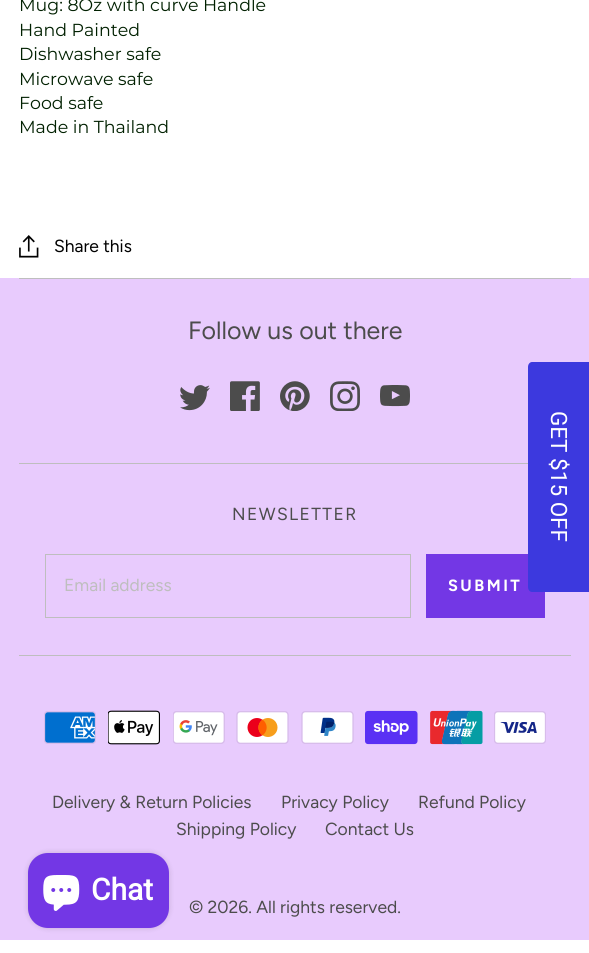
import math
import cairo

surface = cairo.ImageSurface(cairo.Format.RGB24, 589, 953)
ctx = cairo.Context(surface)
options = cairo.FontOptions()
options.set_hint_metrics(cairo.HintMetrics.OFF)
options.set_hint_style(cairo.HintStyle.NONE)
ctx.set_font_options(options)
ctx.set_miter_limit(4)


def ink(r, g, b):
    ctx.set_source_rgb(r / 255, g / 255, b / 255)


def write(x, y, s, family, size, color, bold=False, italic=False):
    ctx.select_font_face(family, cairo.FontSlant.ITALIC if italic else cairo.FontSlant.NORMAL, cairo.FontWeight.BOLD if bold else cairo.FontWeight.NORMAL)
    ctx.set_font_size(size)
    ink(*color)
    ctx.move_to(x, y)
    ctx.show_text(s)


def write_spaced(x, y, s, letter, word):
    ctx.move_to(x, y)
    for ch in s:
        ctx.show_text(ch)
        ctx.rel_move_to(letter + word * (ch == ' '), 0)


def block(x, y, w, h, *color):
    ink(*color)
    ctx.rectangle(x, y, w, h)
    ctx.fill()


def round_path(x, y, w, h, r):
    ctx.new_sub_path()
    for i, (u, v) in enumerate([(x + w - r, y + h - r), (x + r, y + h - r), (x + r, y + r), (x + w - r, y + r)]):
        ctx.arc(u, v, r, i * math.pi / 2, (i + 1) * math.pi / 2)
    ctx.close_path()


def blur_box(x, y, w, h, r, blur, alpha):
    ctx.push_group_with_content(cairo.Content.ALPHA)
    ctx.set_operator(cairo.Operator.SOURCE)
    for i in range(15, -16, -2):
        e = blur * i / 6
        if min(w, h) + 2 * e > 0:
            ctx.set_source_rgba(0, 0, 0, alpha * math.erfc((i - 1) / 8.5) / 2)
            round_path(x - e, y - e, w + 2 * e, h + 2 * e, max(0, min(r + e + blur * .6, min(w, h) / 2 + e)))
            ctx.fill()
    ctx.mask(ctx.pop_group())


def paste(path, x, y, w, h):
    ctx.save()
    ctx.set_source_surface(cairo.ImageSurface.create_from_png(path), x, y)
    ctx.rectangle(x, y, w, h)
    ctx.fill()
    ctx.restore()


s1 = dict(family="Montserrat", size=17.4, color=(0, 32, 0))
s2 = dict(family="Figtree", size=17.5, color=(0, 0, 0))
s3 = dict(family="Figtree", size=25, color=(76, 76, 76))
s4 = dict(family="Figtree", size=17.5, color=(190, 190, 190))
s5 = dict(family="Figtree", size=17.5, color=(76, 76, 76))
s6 = dict(family="Roboto", size=22.5, color=(255, 255, 255))
s7 = dict(family="Roboto", size=30, color=(255, 255, 255), bold=True)

ink(255, 255, 255)
ctx.paint()
write(19, 11, "Mug: 8Oz with curve Handle", **s1)
write(19, 36, "Hand Painted", **s1)
write(19, 60, "Dishwasher safe", **s1)
write(19, 85, "Microwave safe", **s1)
write(19, 109, "Food safe", **s1)
write(19, 133, "Made in Thailand", **s1)
paste("pic1.png", 19, 235, 20, 23)
write(54, 252, "Share this", **s2)
block(0, 278, 589, 662, 232, 203, 253)
block(19, 278, 552, 1, 190, 190, 190)
block(19, 655, 552, 1, 190, 190, 190)
write(188, 339, "Follow us out there", **s3)
paste("pic2.png", 180, 385, 30, 26)
paste("pic3.png", 230, 381, 30, 30)
paste("pic4.png", 280, 381, 30, 30)
paste("pic5.png", 330, 381, 30, 30)
paste("pic6.png", 380, 385, 30, 22)
block(19, 463, 509, 1, 190, 190, 190)
ctx.set_font_size(17.5)
ink(76, 76, 76)
write_spaced(232, 520, "NEWSLETTER", 1.4, 0)
ctx.rectangle(45.5, 554.5, 365, 63)
ink(190, 190, 190)
ctx.set_line_width(1)
ctx.stroke()
write(64, 591, "Email address", **s4)
block(426, 554, 119, 64, 115, 55, 229)
ctx.select_font_face("Figtree", cairo.FontSlant.NORMAL, cairo.FontWeight.BOLD)
ctx.set_font_size(16.25)
ink(255, 255, 255)
write_spaced(448, 591, "SUBMIT", 2.5, 0)
paste("pic7.png", 44, 711, 52, 33)
paste("pic8.png", 108, 710, 52, 35)
paste("pic9.png", 173, 711, 52, 33)
paste("pic10.png", 236, 711, 53, 33)
paste("pic11.png", 301, 711, 53, 33)
paste("pic12.png", 365, 710, 53, 35)
paste("pic13.png", 430, 710, 53, 35)
paste("pic14.png", 494, 711, 52, 33)
write(52, 808, "Delivery & Return Policies", **s5)
write(281, 808, "Privacy Policy", **s5)
write(418, 808, "Refund Policy", **s5)
write(176, 835, "Shipping Policy", **s5)
write(325, 835, "Contact Us", **s5)
write(189, 913, "© 2026. All rights reserved.", **s5)
ink(60, 57, 222)
ctx.new_path()
ctx.move_to(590, 362)
ctx.line_to(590, 592)
ctx.line_to(532, 592)
ctx.curve_to(530, 592, 528, 590, 528, 587)
ctx.line_to(528, 367)
ctx.curve_to(528, 364, 530, 362, 532, 362)
ctx.close_path()
ctx.fill()
ctx.save()
ctx.translate(551, 411)
ctx.rotate(90 * math.pi / 180)
write(0, 0, "GET $15 OFF", **s6)
ctx.restore()
ink(0, 0, 0)
blur_box(28, 853, 141, 75, 20, 3, 0.15)
ink(115, 55, 229)
round_path(28, 853, 141, 75, 20)
ctx.fill()
paste("pic15.png", 43, 875, 37, 36)
write(91, 900, "Chat", **s7)
surface.write_to_png("screenshot.png")
